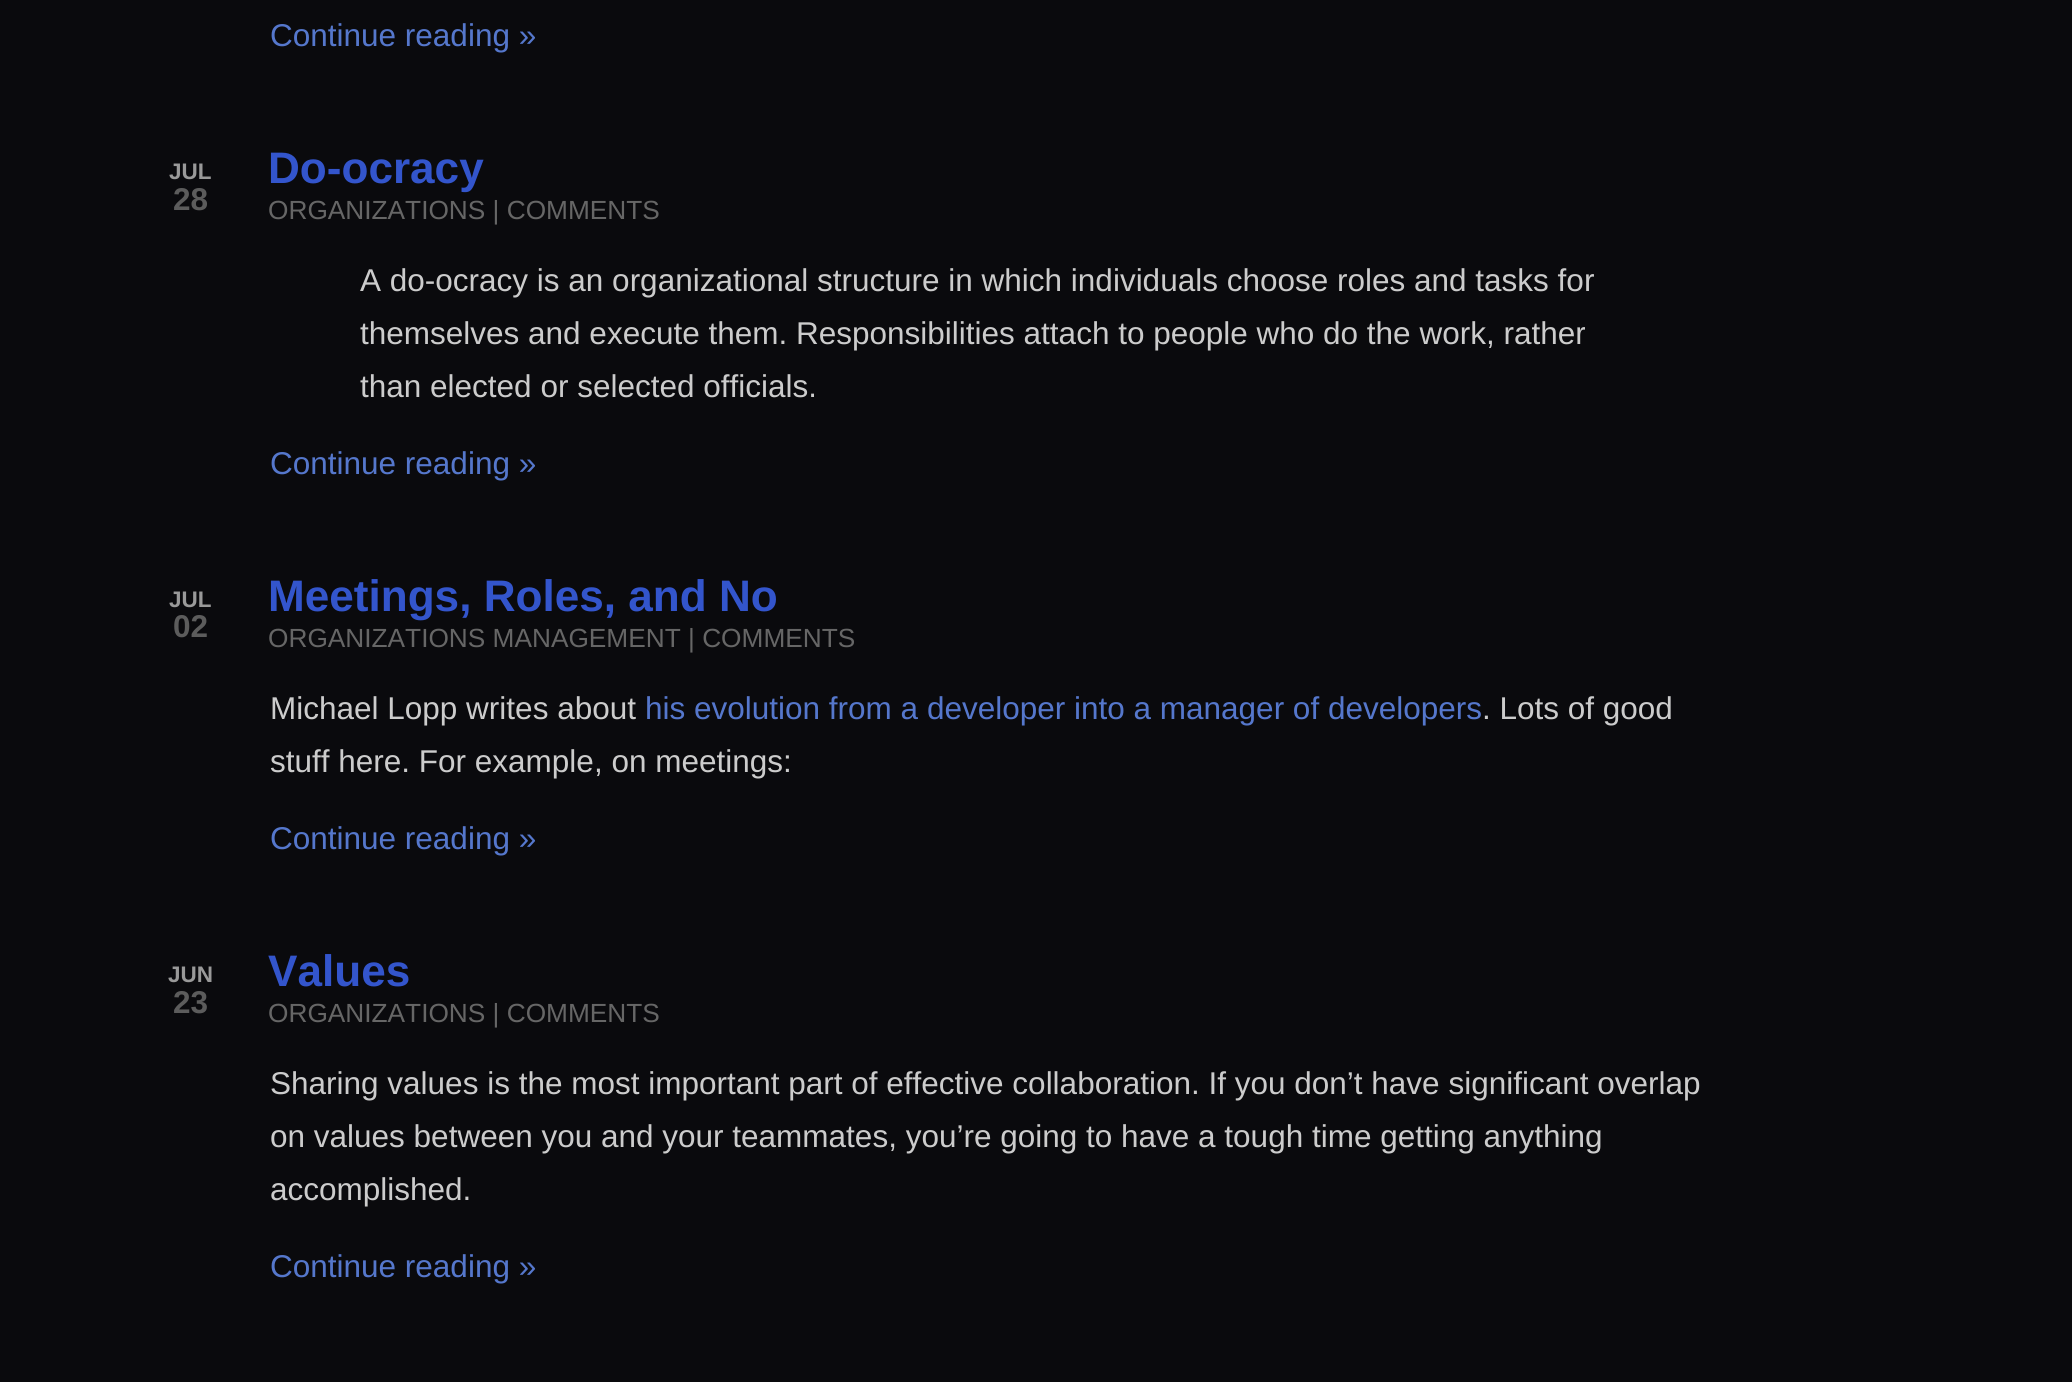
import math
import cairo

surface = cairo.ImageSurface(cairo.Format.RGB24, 2072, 1382)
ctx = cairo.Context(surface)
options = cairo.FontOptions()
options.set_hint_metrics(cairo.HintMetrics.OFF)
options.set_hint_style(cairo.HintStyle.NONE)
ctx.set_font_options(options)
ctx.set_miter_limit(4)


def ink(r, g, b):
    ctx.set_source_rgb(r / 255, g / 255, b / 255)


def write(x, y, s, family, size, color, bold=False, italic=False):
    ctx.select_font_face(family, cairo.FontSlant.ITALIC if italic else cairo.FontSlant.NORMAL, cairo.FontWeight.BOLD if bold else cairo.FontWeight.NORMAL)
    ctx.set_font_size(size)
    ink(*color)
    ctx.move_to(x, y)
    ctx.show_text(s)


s1 = dict(family="Liberation Sans", size=31.5, color=(85, 119, 204))
s2 = dict(family="Liberation Sans", size=22.5, color=(153, 153, 153), bold=True)
s3 = dict(family="Liberation Sans", size=31.5, color=(92, 92, 92), bold=True)
s4 = dict(family="Liberation Sans", size=44.1, color=(51, 85, 204), bold=True)
s5 = dict(family="Liberation Sans", size=26.25, color=(102, 102, 102))
s6 = dict(family="Liberation Sans", size=31.5, color=(204, 204, 204))

ink(10, 10, 13)
ctx.paint()
write(270, 46, "Continue reading »", **s1)
write(169, 179, "JUL", **s2)
write(173, 210, "28", **s3)
write(268, 183, "Do-ocracy", **s4)
write(268, 219, "ORGANIZATIONS | COMMENTS", **s5)
write(360, 291, "A do-ocracy is an organizational structure in which individuals choose roles and tasks for", **s6)
write(360, 344, "themselves and execute them. Responsibilities attach to people who do the work, rather", **s6)
write(360, 397, "than elected or selected officials.", **s6)
write(270, 474, "Continue reading »", **s1)
write(169, 607, "JUL", **s2)
write(173, 637, "02", **s3)
write(268, 611, "Meetings, Roles, and No", **s4)
write(268, 647, "ORGANIZATIONS MANAGEMENT | COMMENTS", **s5)
write(270, 719, "Michael Lopp writes about", **s6)
write(645, 719, "his evolution from a developer into a manager of developers", **s1)
write(1482, 719, ". Lots of good", **s6)
write(270, 772, "stuff here. For example, on meetings:", **s6)
write(270, 849, "Continue reading »", **s1)
write(168, 982, "JUN", **s2)
write(173, 1013, "23", **s3)
write(268, 986, "Values", **s4)
write(268, 1022, "ORGANIZATIONS | COMMENTS", **s5)
write(270, 1094, "Sharing values is the most important part of effective collaboration. If you don’t have significant overlap", **s6)
write(270, 1147, "on values between you and your teammates, you’re going to have a tough time getting anything", **s6)
write(270, 1200, "accomplished.", **s6)
write(270, 1277, "Continue reading »", **s1)
surface.write_to_png("screenshot.png")
